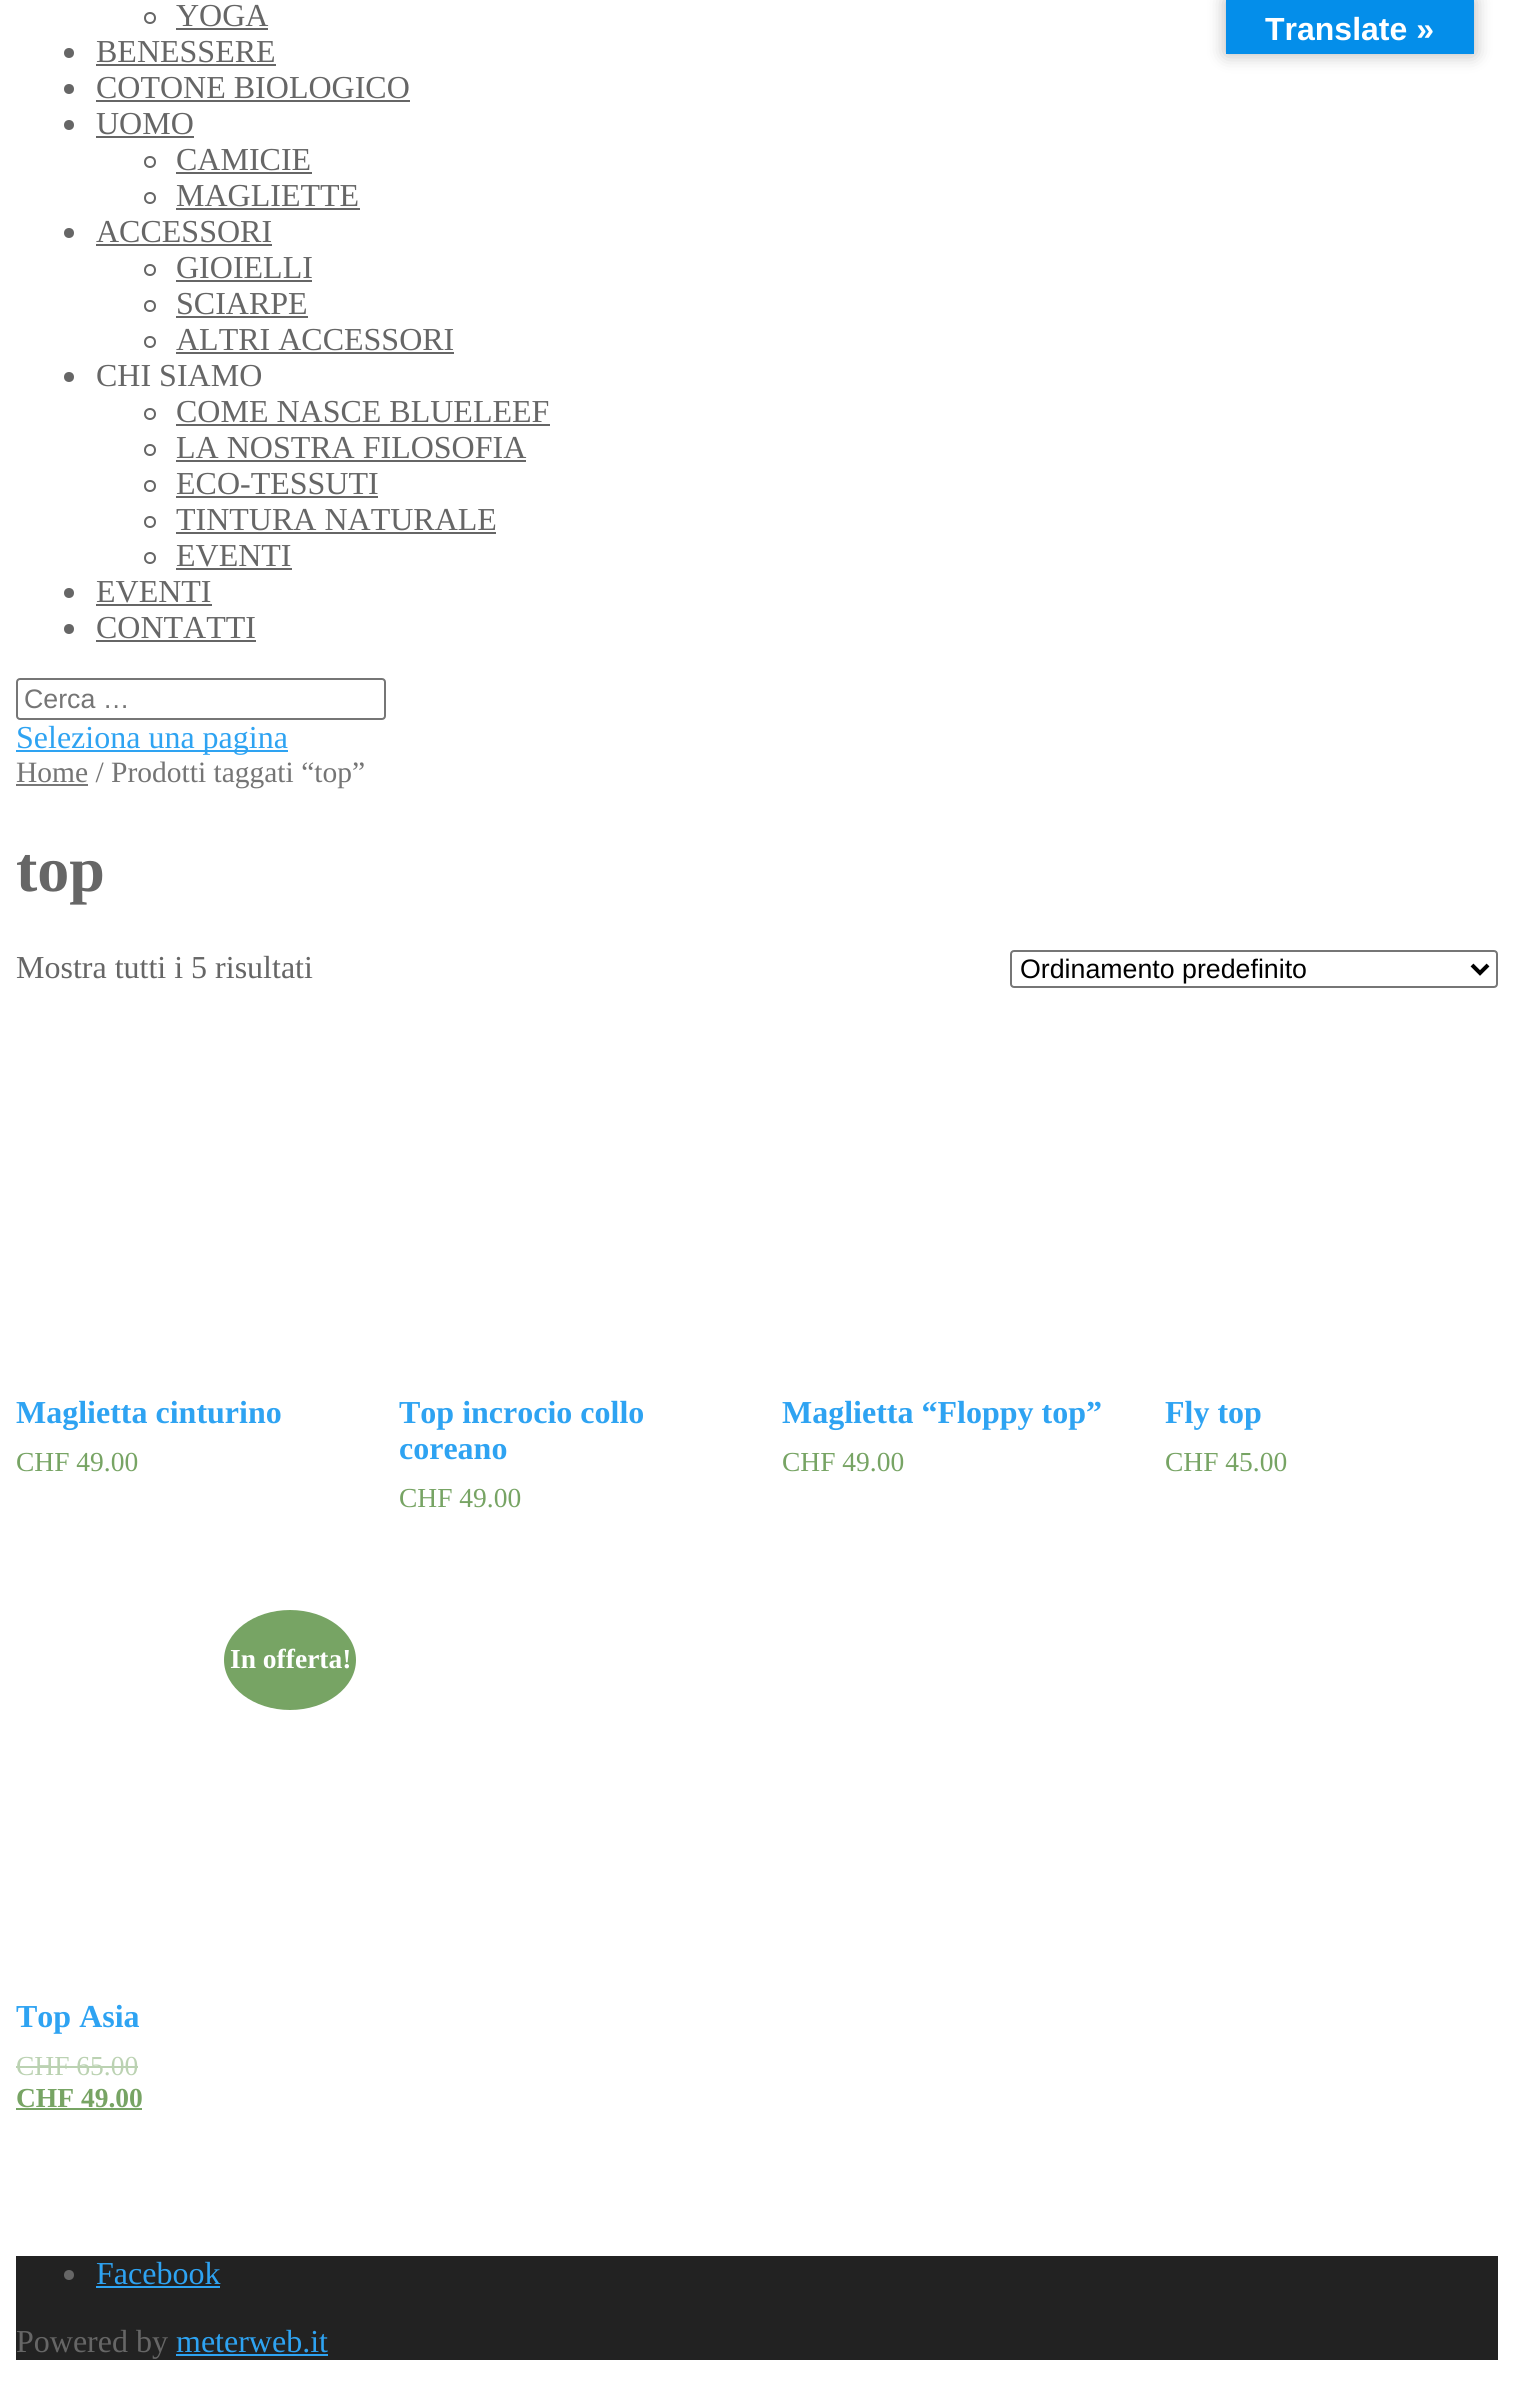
import math
import cairo

surface = cairo.ImageSurface(cairo.Format.RGB24, 1513, 2388)
ctx = cairo.Context(surface)
options = cairo.FontOptions()
options.set_hint_metrics(cairo.HintMetrics.OFF)
options.set_hint_style(cairo.HintStyle.NONE)
ctx.set_font_options(options)
ctx.set_miter_limit(4)


def ink(r, g, b):
    ctx.set_source_rgb(r / 255, g / 255, b / 255)


def write(x, y, s, family, size, color, bold=False, italic=False):
    ctx.select_font_face(family, cairo.FontSlant.ITALIC if italic else cairo.FontSlant.NORMAL, cairo.FontWeight.BOLD if bold else cairo.FontWeight.NORMAL)
    ctx.set_font_size(size)
    ink(*color)
    ctx.move_to(x, y)
    ctx.show_text(s)


def block(x, y, w, h, *color):
    ink(*color)
    ctx.rectangle(x, y, w, h)
    ctx.fill()


def round_path(x, y, w, h, r):
    ctx.new_sub_path()
    for i, (u, v) in enumerate([(x + w - r, y + h - r), (x + r, y + h - r), (x + r, y + r), (x + w - r, y + r)]):
        ctx.arc(u, v, r, i * math.pi / 2, (i + 1) * math.pi / 2)
    ctx.close_path()


def blur_box(x, y, w, h, r, blur, alpha):
    ctx.push_group_with_content(cairo.Content.ALPHA)
    ctx.set_operator(cairo.Operator.SOURCE)
    for i in range(15, -16, -2):
        e = blur * i / 6
        if min(w, h) + 2 * e > 0:
            ctx.set_source_rgba(0, 0, 0, alpha * math.erfc((i - 1) / 8.5) / 2)
            round_path(x - e, y - e, w + 2 * e, h + 2 * e, max(0, min(r + e + blur * .6, min(w, h) / 2 + e)))
            ctx.fill()
    ctx.mask(ctx.pop_group())


s1 = dict(family="Liberation Serif", size=32, color=(102, 102, 102))
s2 = dict(family="Liberation Sans", size=26.75, color=(117, 117, 117))
s3 = dict(family="Liberation Serif", size=32, color=(46, 163, 242))
s4 = dict(family="Liberation Serif", size=29.5, color=(117, 117, 117))
s5 = dict(family="Liberation Serif", size=64, color=(102, 102, 102), bold=True)
s6 = dict(family="Liberation Sans", size=26.75, color=(0, 0, 0))
s7 = dict(family="Liberation Serif", size=32, color=(46, 163, 242), bold=True)
s8 = dict(family="Liberation Serif", size=27.5, color=(119, 164, 100))
s9 = dict(family="Liberation Serif", size=27.5, color=(255, 255, 255), bold=True)
s10 = dict(family="Liberation Serif", size=27.5, color=(187, 210, 178))
s11 = dict(family="Liberation Serif", size=27.5, color=(119, 164, 100), bold=True)
s12 = dict(family="Liberation Sans", size=32, color=(255, 255, 255), bold=True)

ink(255, 255, 255)
ctx.paint()
ctx.arc(150, 18, 5, 0, 2 * math.pi)
ink(102, 102, 102)
ctx.stroke()
write(176, 26, "YOGA", **s1)
block(176, 28, 92, 2, 102, 102, 102)
ctx.new_path()
ctx.arc(69, 53, 5, 0, 2 * math.pi)
ctx.fill()
write(96, 62, "BENESSERE", **s1)
block(96, 64, 180, 2, 102, 102, 102)
ctx.new_path()
ctx.arc(69, 89, 5, 0, 2 * math.pi)
ctx.fill()
write(96, 98, "COTONE BIOLOGICO", **s1)
block(96, 100, 314, 2, 102, 102, 102)
ctx.new_path()
ctx.arc(69, 125, 5, 0, 2 * math.pi)
ctx.fill()
write(96, 134, "UOMO", **s1)
block(96, 136, 98, 2, 102, 102, 102)
ctx.new_path()
ctx.arc(150, 162, 5, 0, 2 * math.pi)
ctx.stroke()
write(176, 170, "CAMICIE", **s1)
block(176, 172, 136, 2, 102, 102, 102)
ctx.new_path()
ctx.arc(150, 198, 5, 0, 2 * math.pi)
ctx.stroke()
write(176, 206, "MAGLIETTE", **s1)
block(176, 208, 184, 2, 102, 102, 102)
ctx.new_path()
ctx.arc(69, 233, 5, 0, 2 * math.pi)
ctx.fill()
write(96, 242, "ACCESSORI", **s1)
block(96, 244, 176, 2, 102, 102, 102)
ctx.new_path()
ctx.arc(150, 270, 5, 0, 2 * math.pi)
ctx.stroke()
write(176, 278, "GIOIELLI", **s1)
block(176, 280, 136, 2, 102, 102, 102)
ctx.new_path()
ctx.arc(150, 306, 5, 0, 2 * math.pi)
ctx.stroke()
write(176, 314, "SCIARPE", **s1)
block(176, 316, 132, 2, 102, 102, 102)
ctx.new_path()
ctx.arc(150, 342, 5, 0, 2 * math.pi)
ctx.stroke()
write(176, 350, "ALTRI ACCESSORI", **s1)
block(176, 352, 278, 2, 102, 102, 102)
ctx.new_path()
ctx.arc(69, 377, 5, 0, 2 * math.pi)
ctx.fill()
write(96, 386, "CHI SIAMO", **s1)
ctx.new_path()
ctx.arc(150, 414, 5, 0, 2 * math.pi)
ctx.stroke()
write(176, 422, "COME NASCE BLUELEEF", **s1)
block(176, 424, 374, 2, 102, 102, 102)
ctx.new_path()
ctx.arc(150, 450, 5, 0, 2 * math.pi)
ctx.stroke()
write(176, 458, "LA NOSTRA FILOSOFIA", **s1)
block(176, 460, 350, 2, 102, 102, 102)
ctx.new_path()
ctx.arc(150, 486, 5, 0, 2 * math.pi)
ctx.stroke()
write(176, 494, "ECO-TESSUTI", **s1)
block(176, 496, 202, 2, 102, 102, 102)
ctx.new_path()
ctx.arc(150, 522, 5, 0, 2 * math.pi)
ctx.stroke()
write(176, 530, "TINTURA NATURALE", **s1)
block(176, 532, 320, 2, 102, 102, 102)
ctx.new_path()
ctx.arc(150, 558, 5, 0, 2 * math.pi)
ctx.stroke()
write(176, 566, "EVENTI", **s1)
block(176, 568, 116, 2, 102, 102, 102)
ctx.new_path()
ctx.arc(69, 593, 5, 0, 2 * math.pi)
ctx.fill()
write(96, 602, "EVENTI", **s1)
block(96, 604, 116, 2, 102, 102, 102)
ctx.new_path()
ctx.arc(69, 629, 5, 0, 2 * math.pi)
ctx.fill()
write(96, 638, "CONTATTI", **s1)
block(96, 640, 160, 2, 102, 102, 102)
round_path(17, 679, 368, 40, 3)
ink(118, 118, 118)
ctx.stroke()
write(24, 708, "Cerca …", **s2)
block(16, 750, 272, 2, 46, 163, 242)
write(16, 748, "Seleziona una pagina", **s3)
block(16, 784, 72, 2, 119, 119, 119)
write(16, 782, "Home / Prodotti taggati “top”", **s4)
write(16, 891, "top", **s5)
write(16, 978, "Mostra tutti i 5 risultati", **s1)
round_path(1011, 951, 486, 36, 3)
ink(118, 118, 118)
ctx.stroke()
ctx.new_path()
ctx.move_to(1472, 965)
ctx.line_to(1480, 973)
ctx.line_to(1488, 965)
ink(0, 0, 0)
ctx.set_line_width(4)
ctx.stroke()
write(1020, 978, "Ordinamento predefinito", **s6)
write(16, 1423, "Maglietta cinturino", **s7)
write(16, 1471, "CHF 49.00", **s8)
write(399, 1423, "Top incrocio collo", **s7)
write(399, 1459, "coreano", **s7)
write(399, 1507, "CHF 49.00", **s8)
write(782, 1423, "Maglietta “Floppy top”", **s7)
write(782, 1471, "CHF 49.00", **s8)
write(1165, 1423, "Fly top", **s7)
write(1165, 1471, "CHF 45.00", **s8)
ctx.new_path()
ctx.move_to(290, 1610)
ctx.curve_to(326.5, 1610, 356, 1632.5, 356, 1660)
ctx.curve_to(356, 1687.5, 326.5, 1710, 290, 1710)
ctx.curve_to(253.5, 1710, 224, 1687.5, 224, 1660)
ctx.curve_to(224, 1632.5, 253.5, 1610, 290, 1610)
ctx.close_path()
ctx.fill()
write(230, 1668, "In offerta!", **s9)
write(16, 2027, "Top Asia", **s7)
write(16, 2075, "CHF 65.00", **s10)
block(16, 2066, 122, 2, 187, 210, 178)
write(16, 2107, "CHF 49.00", **s11)
block(16, 2108, 126, 2, 119, 164, 100)
block(16, 2256, 1482, 104, 34, 34, 34)
ink(102, 102, 102)
ctx.new_path()
ctx.arc(69, 2275, 5, 0, 2 * math.pi)
ctx.fill()
write(96, 2284, "Facebook", **s3)
block(96, 2286, 124, 2, 46, 163, 242)
write(16, 2352, "Powered by", **s1)
write(176, 2352, "meterweb.it", **s3)
block(176, 2354, 152, 2, 46, 163, 242)
ink(0, 0, 0)
blur_box(1226, 0, 248, 54, 0, 9, 0.3)
block(1226, 0, 248, 54, 4, 142, 234)
write(1265, 40, "Translate »", **s12)
surface.write_to_png("screenshot.png")
